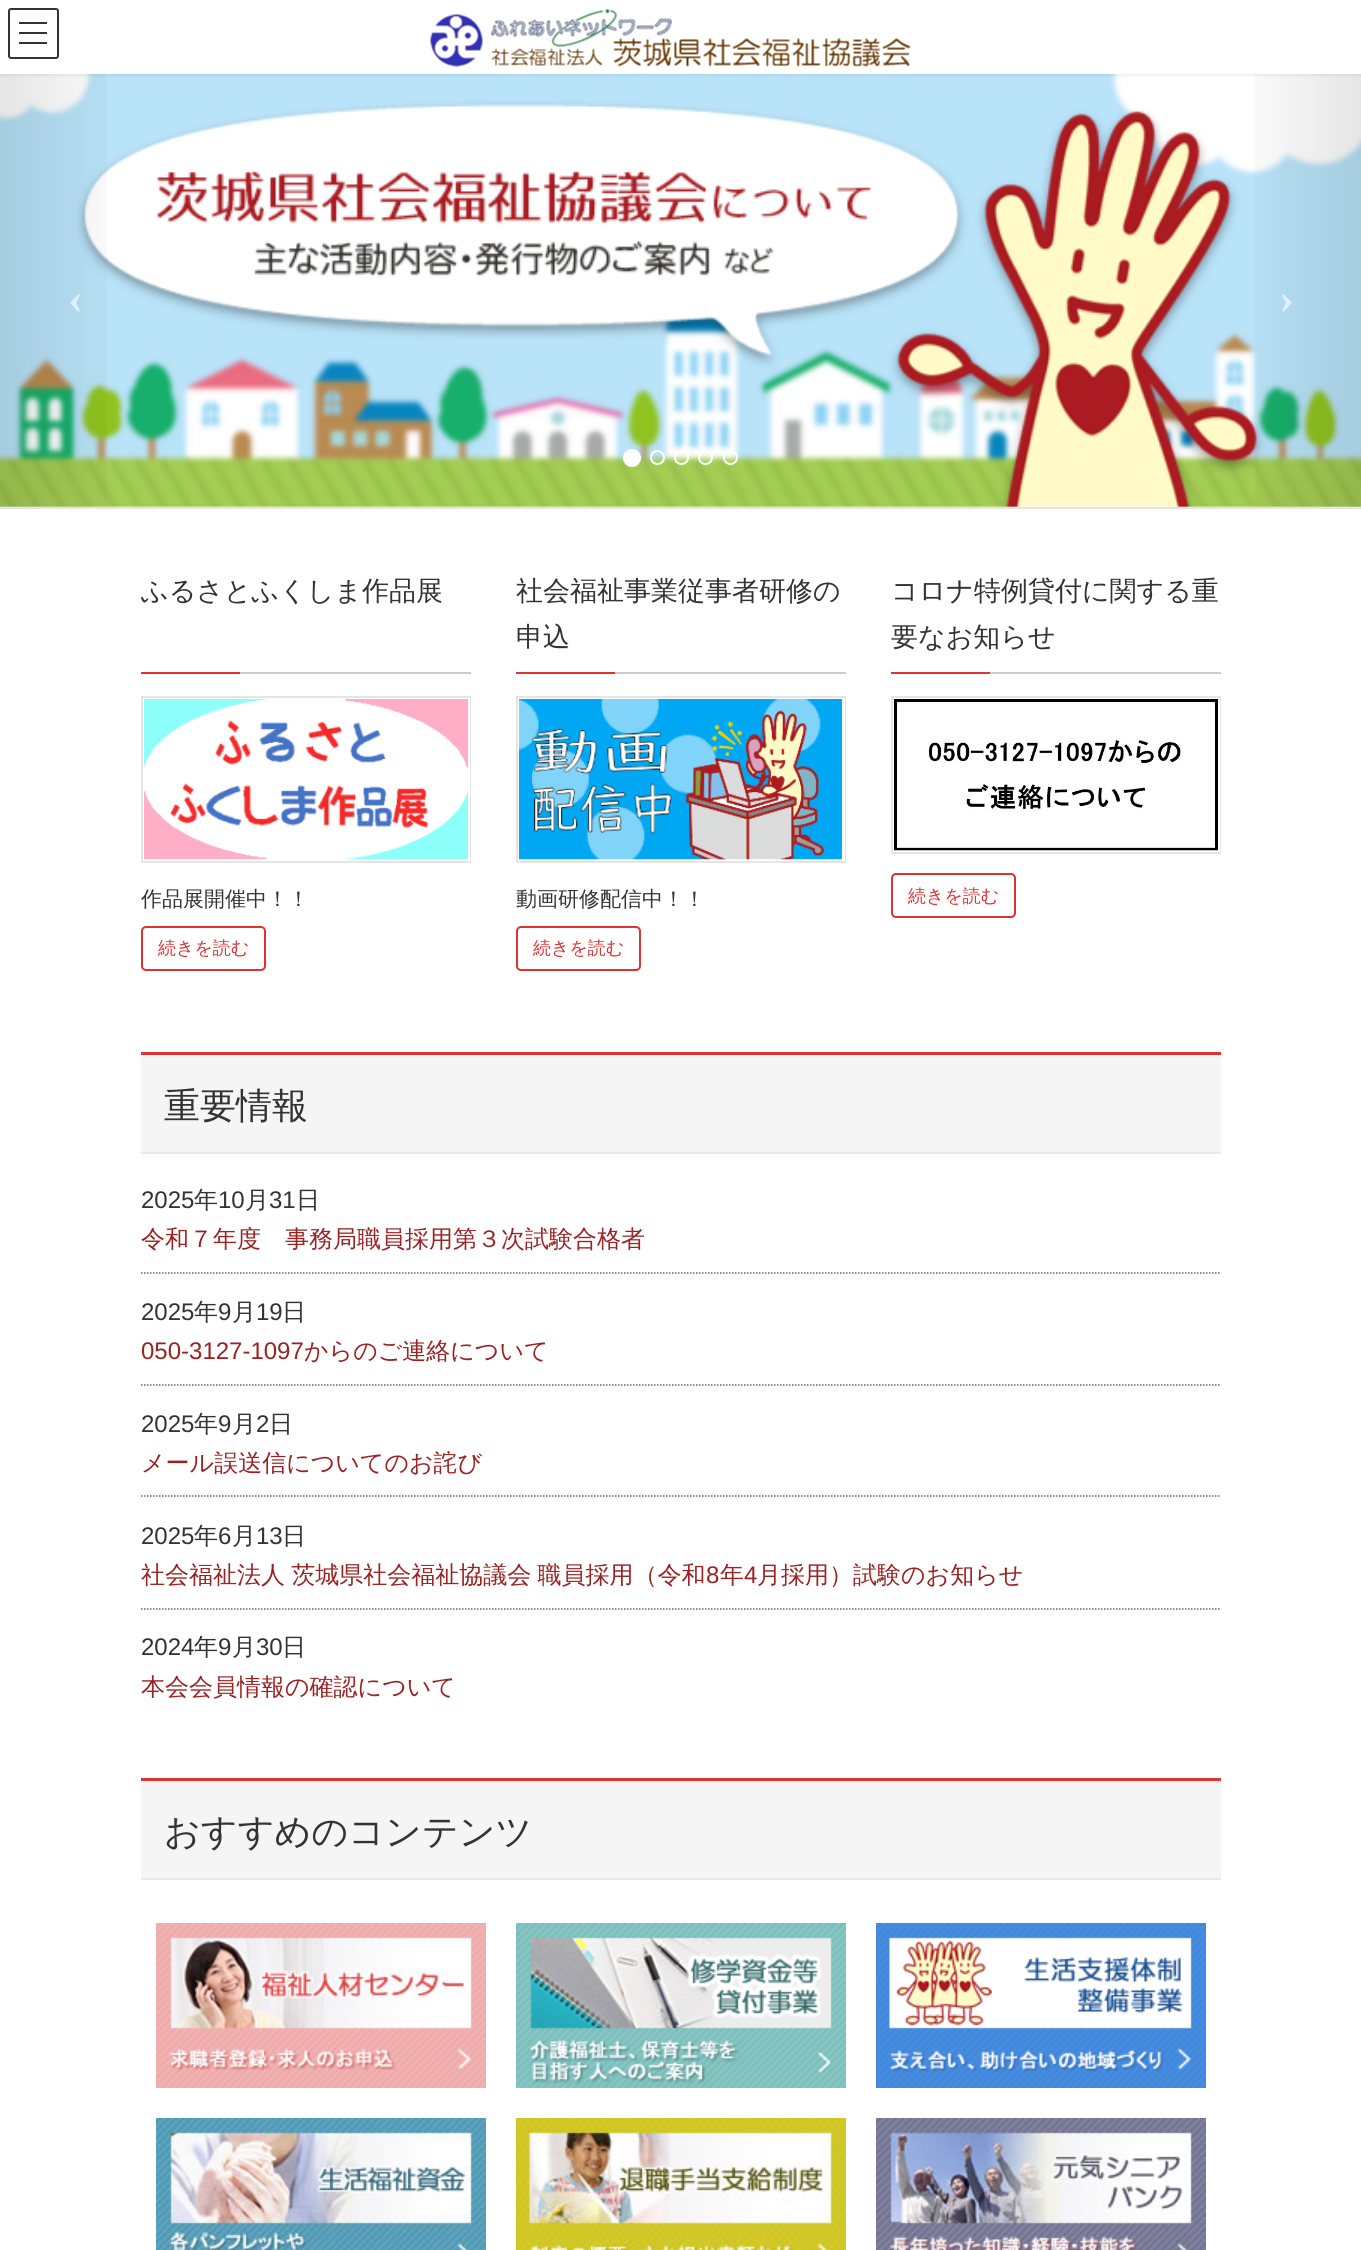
import math
import cairo

surface = cairo.ImageSurface(cairo.Format.RGB24, 1361, 2250)
ctx = cairo.Context(surface)
options = cairo.FontOptions()
options.set_hint_metrics(cairo.HintMetrics.OFF)
options.set_hint_style(cairo.HintStyle.NONE)
ctx.set_font_options(options)
ctx.set_miter_limit(4)


def ink(r, g, b):
    ctx.set_source_rgb(r / 255, g / 255, b / 255)


def write(x, y, s, family, size, color, bold=False, italic=False):
    ctx.select_font_face(family, cairo.FontSlant.ITALIC if italic else cairo.FontSlant.NORMAL, cairo.FontWeight.BOLD if bold else cairo.FontWeight.NORMAL)
    ctx.set_font_size(size)
    ink(*color)
    ctx.move_to(x, y)
    ctx.show_text(s)


def write_spaced(x, y, s, letter, word):
    ctx.move_to(x, y)
    for ch in s:
        ctx.show_text(ch)
        ctx.rel_move_to(letter + word * (ch == ' '), 0)


def block(x, y, w, h, *color):
    ink(*color)
    ctx.rectangle(x, y, w, h)
    ctx.fill()


def round_path(x, y, w, h, r):
    ctx.new_sub_path()
    for i, (u, v) in enumerate([(x + w - r, y + h - r), (x + r, y + h - r), (x + r, y + r), (x + w - r, y + r)]):
        ctx.arc(u, v, r, i * math.pi / 2, (i + 1) * math.pi / 2)
    ctx.close_path()


def blur_box(x, y, w, h, r, blur, alpha):
    ctx.push_group_with_content(cairo.Content.ALPHA)
    ctx.set_operator(cairo.Operator.SOURCE)
    for i in range(15, -16, -2):
        e = blur * i / 6
        if min(w, h) + 2 * e > 0:
            ctx.set_source_rgba(0, 0, 0, alpha * math.erfc((i - 1) / 8.5) / 2)
            round_path(x - e, y - e, w + 2 * e, h + 2 * e, max(0, min(r + e + blur * .6, min(w, h) / 2 + e)))
            ctx.fill()
    ctx.mask(ctx.pop_group())


def paste(path, x, y, w, h):
    ctx.save()
    ctx.set_source_surface(cairo.ImageSurface.create_from_png(path), x, y)
    ctx.rectangle(x, y, w, h)
    ctx.fill()
    ctx.restore()


s1 = dict(family="Liberation Serif", size=45, color=(220, 241, 252), bold=True)
s2 = dict(family="WenQuanYi Zen Hei Medium", size=27, color=(51, 51, 51))
s3 = dict(family="WenQuanYi Zen Hei Medium", size=21, color=(51, 51, 51))
s4 = dict(family="WenQuanYi Zen Hei Medium", size=18, color=(221, 51, 51))
s5 = dict(family="WenQuanYi Zen Hei Medium", size=36, color=(51, 51, 51))
s6 = dict(family="Liberation Sans", size=24, color=(51, 51, 51))
s7 = dict(family="WenQuanYi Zen Hei Medium", size=24, color=(51, 51, 51))
s8 = dict(family="WenQuanYi Zen Hei Medium", size=24, color=(155, 34, 34))
s9 = dict(family="Liberation Sans", size=24, color=(155, 34, 34))

ink(255, 255, 255)
ctx.paint()
paste("pic2.png", 0, 74, 1361, 433)
gradient = cairo.LinearGradient(137, 290, 0, 290)
gradient.add_color_stop_rgba(0, 0, 0, 0, 0)
gradient.add_color_stop_rgba(1, 0, 0, 0, 0.1)
ctx.set_source(gradient)
ctx.rectangle(0, 74, 107, 433)
ctx.fill()
gradient = cairo.LinearGradient(1226, 290, 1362, 290)
gradient.add_color_stop_rgba(0, 0, 0, 0, 0)
gradient.add_color_stop_rgba(1, 0, 0, 0, 0.1)
ctx.set_source(gradient)
ctx.rectangle(1255, 74, 106, 433)
ctx.fill()
ink(0, 0, 0)
blur_box(0, 2, 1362, 73, 0, 2, 0.1)
block(0, 0, 1361, 74, 255, 255, 255)
paste("pic1.png", 430, 8, 481, 59)
block(19, 22, 28, 2, 51, 51, 51)
block(19, 32, 28, 2, 51, 51, 51)
block(19, 42, 28, 2, 51, 51, 51)
round_path(9, 9, 49, 49, 2)
ctx.stroke()
block(0, 507, 1361, 2, 229, 229, 229)
ink(255, 255, 255)
ctx.arc(632, 458, 8, 0, 2 * math.pi)
ctx.fill_preserve()
ctx.stroke()
ctx.arc(657.5, 457.5, 6.5, 0, 2 * math.pi)
ctx.stroke()
ctx.arc(681.5, 457.5, 6.5, 0, 2 * math.pi)
ctx.stroke()
ctx.arc(705.5, 457.5, 6.5, 0, 2 * math.pi)
ctx.stroke()
ctx.arc(730.5, 457.5, 6.5, 0, 2 * math.pi)
ctx.stroke()
write(68, 313, "‹", **s1)
write(1279, 313, "›", **s1)
block(240, 672, 231, 2, 204, 204, 204)
write(141, 600, "ふるさとふくしま作品展", **s2)
block(141, 672, 99, 2, 221, 51, 51)
ctx.rectangle(142, 697, 328, 165)
ink(229, 229, 229)
ctx.stroke()
ctx.rectangle(144, 699, 325, 161)
ink(255, 255, 255)
ctx.stroke()
paste("pic3.png", 144, 699, 324, 161)
write(141, 906, "作品展開催中！！", **s3)
round_path(142, 927, 123, 43, 4)
ink(221, 51, 51)
ctx.stroke()
write(158, 954, "続きを読む", **s4)
block(615, 672, 231, 2, 204, 204, 204)
write(516, 600, "社会福祉事業従事者研修の", **s2)
write(516, 646, "申込", **s2)
block(516, 672, 99, 2, 221, 51, 51)
ctx.rectangle(517, 697, 328, 165)
ink(229, 229, 229)
ctx.stroke()
ctx.rectangle(519, 699, 325, 161)
ink(255, 255, 255)
ctx.stroke()
paste("pic4.png", 519, 699, 323, 161)
write(516, 906, "動画研修配信中！！", **s3)
round_path(517, 927, 123, 43, 4)
ink(221, 51, 51)
ctx.stroke()
write(533, 954, "続きを読む", **s4)
block(990, 672, 231, 2, 204, 204, 204)
write(891, 600, "コロナ特例貸付に関する重", **s2)
write(891, 646, "要なお知らせ", **s2)
block(891, 672, 99, 2, 221, 51, 51)
ctx.rectangle(892, 697, 328, 156)
ink(229, 229, 229)
ctx.stroke()
ctx.rectangle(894, 699, 325, 152)
ink(255, 255, 255)
ctx.stroke()
paste("pic5.png", 894, 699, 324, 152)
round_path(892, 874, 123, 43, 4)
ink(221, 51, 51)
ctx.stroke()
write(908, 902, "続きを読む", **s4)
block(141, 1055, 1080, 97, 245, 245, 245)
block(141, 1052, 1080, 3, 221, 51, 51)
block(141, 1152, 1080, 2, 233, 233, 233)
write(164, 1118, "重要情報", **s5)
ctx.new_path()
ctx.move_to(141, 1273)
ctx.line_to(1221, 1273)
ink(102, 102, 102)
ctx.set_line_width(1.5)
ctx.set_dash([1.5, 1.5])
ctx.stroke()
write(141, 1208, "2025", **s6)
write(194, 1208, "年", **s7)
write(218, 1208, "10", **s6)
write(245, 1208, "月", **s7)
write(269, 1208, "31", **s6)
write(296, 1208, "日", **s7)
write(141, 1247, "令和７年度　事務局職員採用第３次試験合格者", **s8)
ctx.new_path()
ctx.move_to(141, 1385)
ctx.line_to(1221, 1385)
ink(102, 102, 102)
ctx.stroke()
write(141, 1320, "2025", **s6)
write(194, 1320, "年", **s7)
write(218, 1320, "9", **s6)
write(232, 1320, "月", **s7)
write(256, 1320, "19", **s6)
write(282, 1320, "日", **s7)
write(141, 1359, "050-3127-1097", **s9)
write(304, 1359, "からのご連絡について", **s8)
ctx.new_path()
ctx.move_to(141, 1496)
ctx.line_to(1221, 1496)
ink(102, 102, 102)
ctx.stroke()
write(141, 1432, "2025", **s6)
write(194, 1432, "年", **s7)
write(218, 1432, "9", **s6)
write(232, 1432, "月", **s7)
write(256, 1432, "2", **s6)
write(269, 1432, "日", **s7)
write(141, 1471, "メール誤送信についてのお詫び", **s8)
ctx.new_path()
ctx.move_to(141, 1609)
ctx.line_to(1221, 1609)
ink(102, 102, 102)
ctx.stroke()
write(141, 1544, "2025", **s6)
write(194, 1544, "年", **s7)
write(218, 1544, "6", **s6)
write(232, 1544, "月", **s7)
write(256, 1544, "13", **s6)
write(282, 1544, "日", **s7)
ink(155, 34, 34)
write_spaced(141, 1583, "社会福祉法人 茨城県社会福祉協議会 職員採用（令和", 0, -1)
write(706, 1583, "8", **s9)
write(720, 1583, "年", **s8)
write(744, 1583, "4", **s9)
write(757, 1583, "月採用）試験のお知らせ", **s8)
write(141, 1655, "2024", **s6)
write(194, 1655, "年", **s7)
write(218, 1655, "9", **s6)
write(232, 1655, "月", **s7)
write(256, 1655, "30", **s6)
write(282, 1655, "日", **s7)
write(141, 1695, "本会会員情報の確認について", **s8)
block(141, 1781, 1080, 97, 245, 245, 245)
block(141, 1778, 1080, 3, 221, 51, 51)
block(141, 1878, 1080, 2, 233, 233, 233)
write(164, 1844, "おすすめのコンテンツ", **s5)
paste("pic6.png", 156, 1923, 330, 165)
paste("pic7.png", 516, 1923, 330, 165)
paste("pic8.png", 876, 1923, 330, 165)
paste("pic9.png", 156, 2118, 330, 132)
paste("pic10.png", 516, 2118, 330, 132)
paste("pic11.png", 876, 2118, 330, 132)
surface.write_to_png("screenshot.png")
